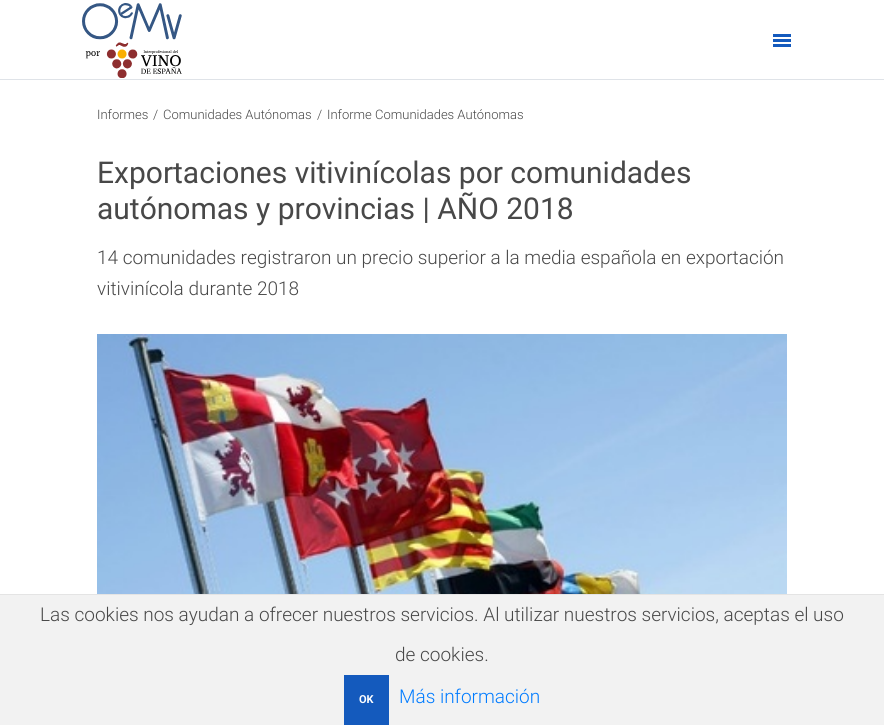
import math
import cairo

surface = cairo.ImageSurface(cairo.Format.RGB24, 884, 725)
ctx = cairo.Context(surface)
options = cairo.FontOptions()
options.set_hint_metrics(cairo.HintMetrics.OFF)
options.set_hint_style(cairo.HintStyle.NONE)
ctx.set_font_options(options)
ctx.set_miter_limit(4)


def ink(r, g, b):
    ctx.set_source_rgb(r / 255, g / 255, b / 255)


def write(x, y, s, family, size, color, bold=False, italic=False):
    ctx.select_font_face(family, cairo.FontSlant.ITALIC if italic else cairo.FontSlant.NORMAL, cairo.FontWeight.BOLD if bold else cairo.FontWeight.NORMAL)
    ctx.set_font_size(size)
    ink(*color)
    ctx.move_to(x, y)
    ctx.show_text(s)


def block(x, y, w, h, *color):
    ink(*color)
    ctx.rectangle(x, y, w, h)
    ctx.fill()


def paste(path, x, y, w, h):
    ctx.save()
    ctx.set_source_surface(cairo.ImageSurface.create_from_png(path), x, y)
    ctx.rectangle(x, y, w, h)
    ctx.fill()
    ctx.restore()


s1 = dict(family="Roboto Light", size=13, color=(72, 72, 72))
s2 = dict(family="Roboto", size=30, color=(72, 72, 72))
s3 = dict(family="Roboto Light", size=19, color=(72, 72, 72))
s4 = dict(family="Roboto", size=11, color=(255, 255, 255), bold=True)
s5 = dict(family="Roboto Light", size=19, color=(0, 123, 255))

ink(255, 255, 255)
ctx.paint()
block(0, 79, 884, 1, 223, 227, 232)
paste("pic1.png", 82, 3, 100, 75)
block(773, 34, 18, 3, 20, 90, 189)
block(773, 39, 18, 3, 20, 90, 189)
block(773, 44, 18, 3, 20, 90, 189)
write(97, 119, "Informes", **s1)
write(153, 119, "/", **s1)
write(163, 119, "Comunidades Autónomas", **s1)
write(317, 119, "/", **s1)
write(327, 119, "Informe Comunidades Autónomas", **s1)
write(97, 183, "Exportaciones vitivinícolas por comunidades", **s2)
write(97, 219, "autónomas y provincias | AÑO 2018", **s2)
write(97, 264, "14 comunidades registraron un precio superior a la media española en exportación", **s3)
write(97, 295, "vitivinícola durante 2018", **s3)
paste("pic2.png", 97, 334, 690, 260)
block(0, 595, 884, 130, 242, 242, 242)
block(0, 594, 884, 1, 228, 228, 228)
write(40, 621, "Las cookies nos ayudan a ofrecer nuestros servicios. Al utilizar nuestros servicios, aceptas el uso", **s3)
write(395, 661, "de cookies.", **s3)
block(344, 675, 45, 50, 20, 90, 189)
write(359, 703, "OK", **s4)
write(399, 703, "Más información", **s5)
surface.write_to_png("screenshot.png")
